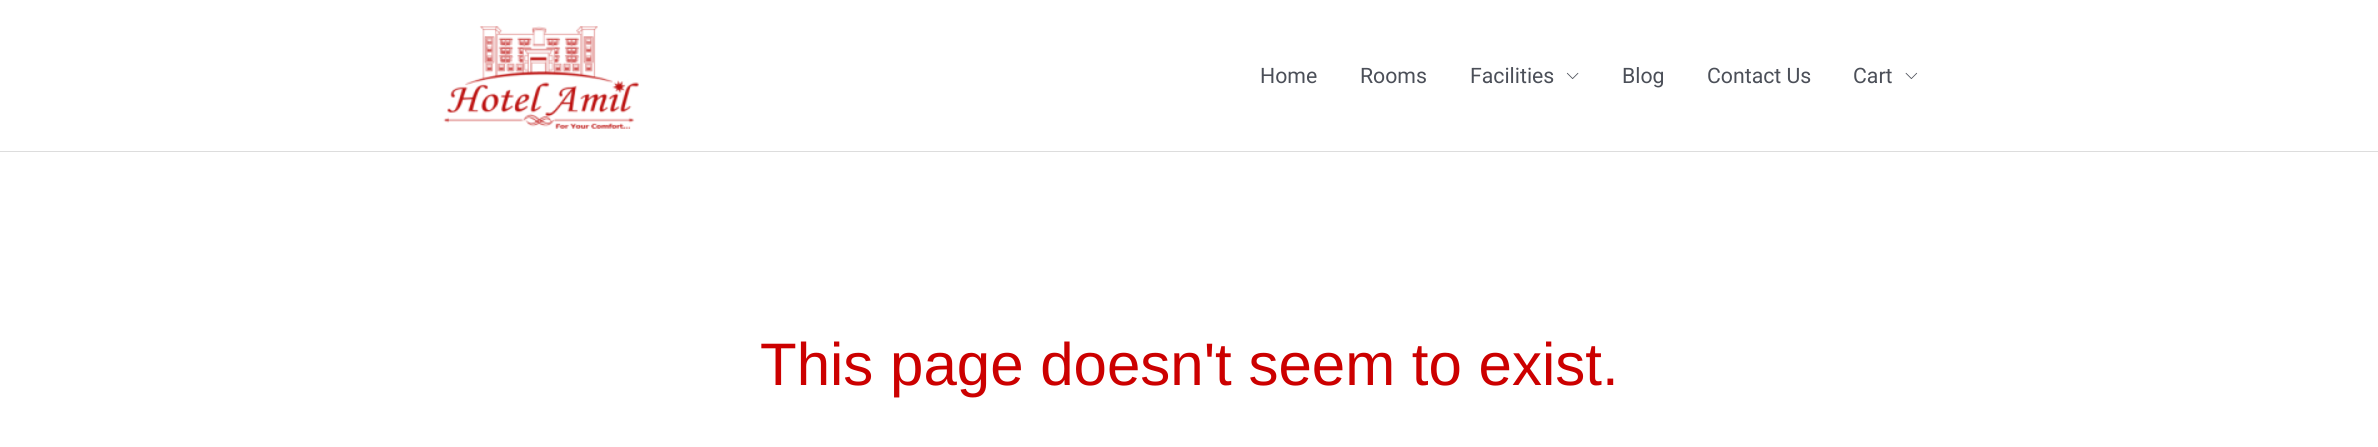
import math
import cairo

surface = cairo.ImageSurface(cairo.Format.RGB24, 2378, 447)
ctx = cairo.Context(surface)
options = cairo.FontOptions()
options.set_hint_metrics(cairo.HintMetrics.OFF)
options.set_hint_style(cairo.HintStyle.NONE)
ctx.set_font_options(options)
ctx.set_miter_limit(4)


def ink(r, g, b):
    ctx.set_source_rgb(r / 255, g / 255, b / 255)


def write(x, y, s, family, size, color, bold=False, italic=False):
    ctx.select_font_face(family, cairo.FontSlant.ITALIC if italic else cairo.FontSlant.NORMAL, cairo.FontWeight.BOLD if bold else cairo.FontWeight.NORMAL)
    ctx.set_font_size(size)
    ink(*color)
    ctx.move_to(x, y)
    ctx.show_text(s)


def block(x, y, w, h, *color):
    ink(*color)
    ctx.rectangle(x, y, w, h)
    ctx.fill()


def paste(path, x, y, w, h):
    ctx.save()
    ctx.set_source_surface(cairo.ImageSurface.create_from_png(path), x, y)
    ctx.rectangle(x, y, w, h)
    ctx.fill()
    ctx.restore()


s1 = dict(family="Roboto", size=21.25, color=(75, 79, 88))
s2 = dict(family="Liberation Sans", size=60, color=(204, 0, 0))

ink(255, 255, 255)
ctx.paint()
block(0, 151, 2378, 1, 221, 221, 221)
paste("pic1.png", 443, 26, 196, 103)
write(1260, 83, "Home", **s1)
write(1360, 83, "Rooms", **s1)
write(1470, 83, "Facilities", **s1)
paste("pic2.png", 1566, 72, 13, 7)
write(1622, 83, "Blog", **s1)
write(1707, 83, "Contact Us", **s1)
write(1853, 83, "Cart", **s1)
paste("pic3.png", 1905, 72, 13, 7)
write(760, 385, "This page doesn't seem to exist.", **s2)
surface.write_to_png("screenshot.png")
